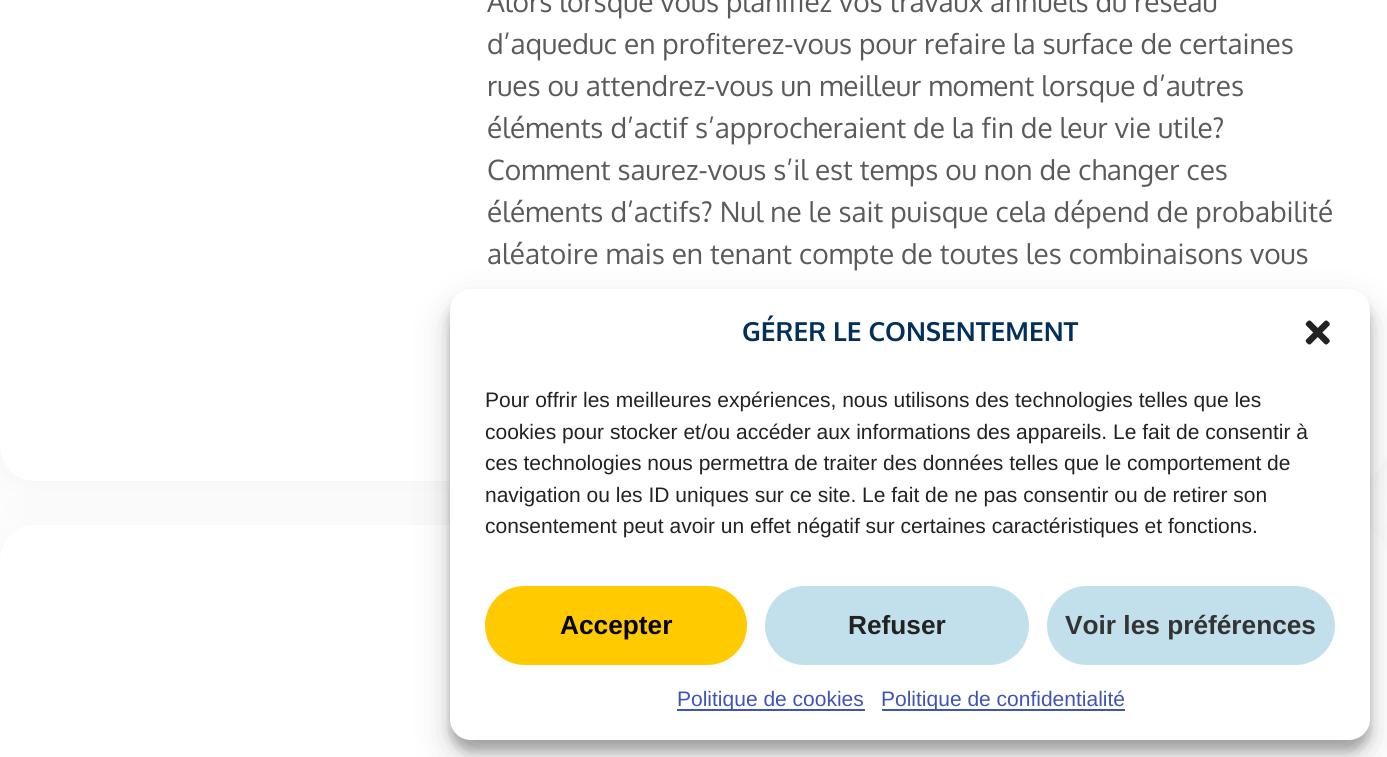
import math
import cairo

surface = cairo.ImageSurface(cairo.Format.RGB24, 1387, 757)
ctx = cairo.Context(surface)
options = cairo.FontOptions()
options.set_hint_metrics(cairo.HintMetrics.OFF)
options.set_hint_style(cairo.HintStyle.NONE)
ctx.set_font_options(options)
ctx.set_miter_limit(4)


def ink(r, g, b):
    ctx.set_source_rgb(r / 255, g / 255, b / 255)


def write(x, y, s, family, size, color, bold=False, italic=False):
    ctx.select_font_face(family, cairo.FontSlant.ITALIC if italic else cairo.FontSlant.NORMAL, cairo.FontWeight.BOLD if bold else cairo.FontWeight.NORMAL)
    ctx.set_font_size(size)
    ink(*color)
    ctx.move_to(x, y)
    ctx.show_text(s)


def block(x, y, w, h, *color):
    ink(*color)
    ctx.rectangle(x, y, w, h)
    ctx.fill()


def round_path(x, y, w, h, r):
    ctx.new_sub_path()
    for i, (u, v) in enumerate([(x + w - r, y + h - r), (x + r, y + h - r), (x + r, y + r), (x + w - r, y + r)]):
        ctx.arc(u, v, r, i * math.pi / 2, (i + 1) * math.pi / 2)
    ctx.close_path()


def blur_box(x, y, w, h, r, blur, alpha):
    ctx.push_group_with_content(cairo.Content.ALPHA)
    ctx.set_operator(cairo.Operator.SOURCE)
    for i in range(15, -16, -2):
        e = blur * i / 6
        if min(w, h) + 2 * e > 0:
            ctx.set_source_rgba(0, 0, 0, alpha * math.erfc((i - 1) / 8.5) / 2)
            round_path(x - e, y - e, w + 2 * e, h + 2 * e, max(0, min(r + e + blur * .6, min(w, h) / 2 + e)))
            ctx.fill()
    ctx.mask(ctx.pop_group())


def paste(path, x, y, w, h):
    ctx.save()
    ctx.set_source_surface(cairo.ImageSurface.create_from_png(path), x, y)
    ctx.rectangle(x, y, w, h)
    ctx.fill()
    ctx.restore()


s1 = dict(family="Oxygen", size=28, color=(90, 90, 90))
s2 = dict(family="Oxygen", size=26.25, color=(3, 48, 91), bold=True)
s3 = dict(family="Liberation Sans", size=21, color=(34, 34, 34))
s4 = dict(family="Liberation Sans", size=26.25, color=(4, 4, 4), bold=True)
s5 = dict(family="Liberation Sans", size=26.25, color=(34, 34, 34), bold=True)
s6 = dict(family="Liberation Sans", size=26.25, color=(51, 51, 51), bold=True)
s7 = dict(family="Liberation Sans", size=21, color=(64, 84, 178))

ink(255, 255, 255)
ctx.paint()
ink(0, 0, 0)
blur_box(-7, -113, 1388, 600, 35, 26, 0.05)
ink(255, 255, 255)
round_path(0, -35, 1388, 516, 35)
ctx.fill()
write(487, 12, "Alors lorsque vous planifiez vos travaux annuels du réseau", **s1)
write(487, 54, "d’aqueduc en profiterez-vous pour refaire la surface de certaines", **s1)
write(487, 96, "rues ou attendrez-vous un meilleur moment lorsque d’autres", **s1)
write(487, 138, "éléments d’actif s’approcheraient de la fin de leur vie utile?", **s1)
write(487, 180, "Comment saurez-vous s’il est temps ou non de changer ces", **s1)
write(487, 222, "éléments d’actifs? Nul ne le sait puisque cela dépend de probabilité", **s1)
write(487, 264, "aléatoire mais en tenant compte de toutes les combinaisons vous", **s1)
ink(0, 0, 0)
blur_box(-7, 530, 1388, 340, 35, 26, 0.05)
ink(255, 255, 255)
round_path(0, 525, 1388, 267, 35)
ctx.fill()
ink(0, 0, 0)
blur_box(450, 299, 920, 452, 21, 5, 0.23)
blur_box(450, 306, 920, 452, 21, 17.5, 0.19)
ink(255, 255, 255)
round_path(450, 289, 920, 451, 21)
ctx.fill()
write(742, 341, "GÉRER LE CONSENTEMENT", **s2)
paste("pic1.png", 1305, 320, 25, 25)
write(485, 407, "Pour offrir les meilleures expériences, nous utilisons des technologies telles que les", **s3)
write(485, 439, "cookies pour stocker et/ou accéder aux informations des appareils. Le fait de consentir à", **s3)
write(485, 470, "ces technologies nous permettra de traiter des données telles que le comportement de", **s3)
write(485, 502, "navigation ou les ID uniques sur ce site. Le fait de ne pas consentir ou de retirer son", **s3)
write(485, 533, "consentement peut avoir un effet négatif sur certaines caractéristiques et fonctions.", **s3)
ink(255, 202, 0)
round_path(486, 587, 260, 77, 38.5)
ctx.fill_preserve()
ctx.stroke()
write(560, 634, "Accepter", **s4)
ink(193, 224, 236)
round_path(766, 587, 262, 77, 38.5)
ctx.fill_preserve()
ctx.stroke()
write(848, 634, "Refuser", **s5)
ink(193, 224, 236)
round_path(1048, 587, 286, 77, 38.5)
ctx.fill_preserve()
ctx.stroke()
write(1065, 634, "Voir les préférences", **s6)
block(677, 709, 188, 2, 64, 84, 178)
write(677, 706, "Politique de cookies", **s7)
block(882, 709, 243, 2, 64, 84, 178)
write(881, 706, "Politique de confidentialité", **s7)
surface.write_to_png("screenshot.png")
